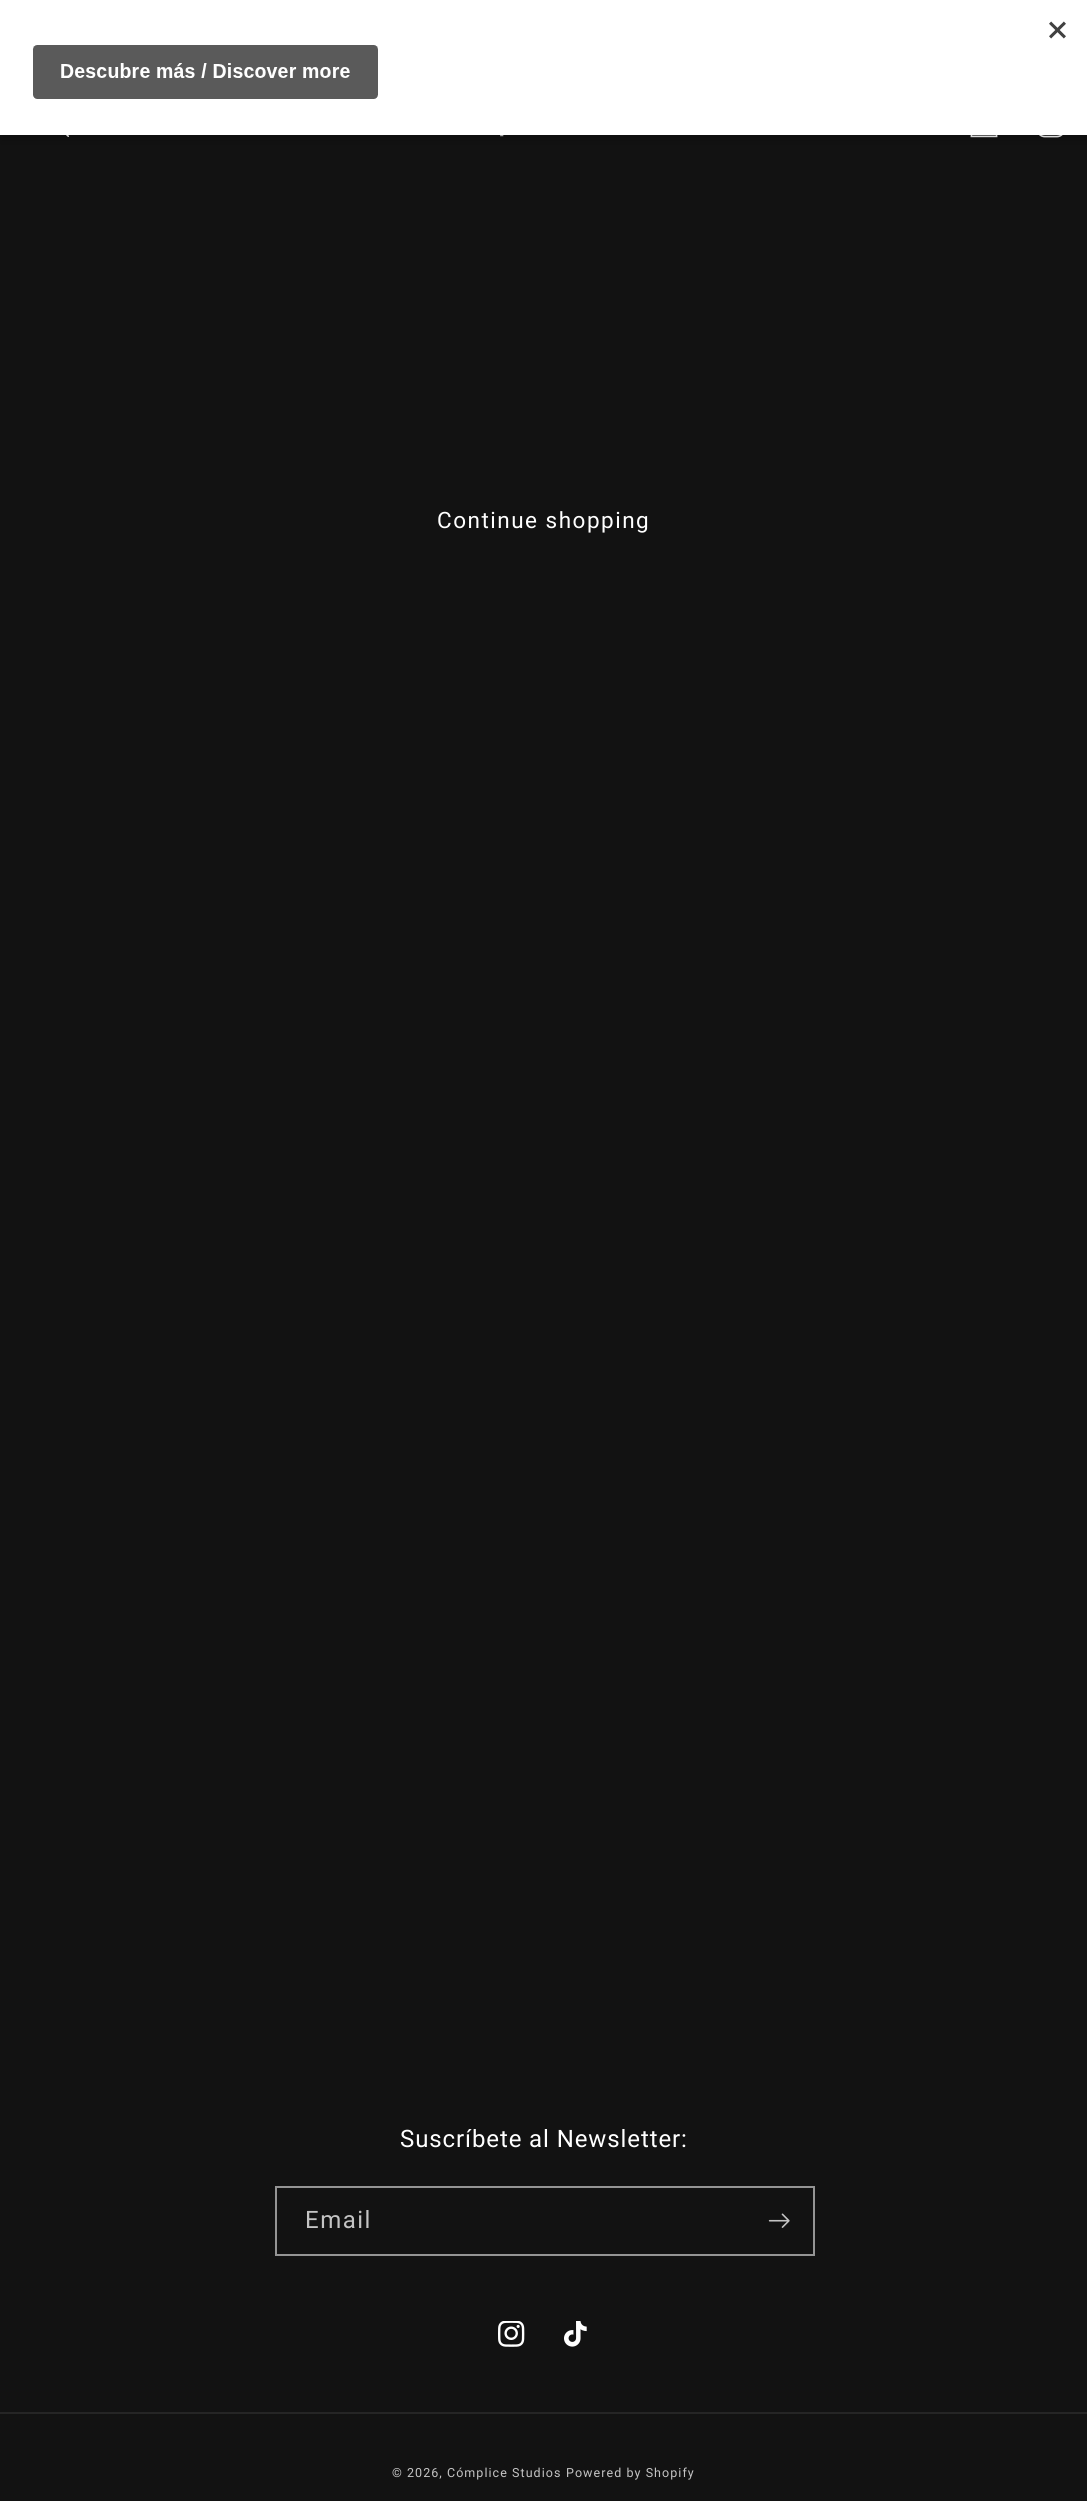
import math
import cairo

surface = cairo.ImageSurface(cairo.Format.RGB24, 1087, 2501)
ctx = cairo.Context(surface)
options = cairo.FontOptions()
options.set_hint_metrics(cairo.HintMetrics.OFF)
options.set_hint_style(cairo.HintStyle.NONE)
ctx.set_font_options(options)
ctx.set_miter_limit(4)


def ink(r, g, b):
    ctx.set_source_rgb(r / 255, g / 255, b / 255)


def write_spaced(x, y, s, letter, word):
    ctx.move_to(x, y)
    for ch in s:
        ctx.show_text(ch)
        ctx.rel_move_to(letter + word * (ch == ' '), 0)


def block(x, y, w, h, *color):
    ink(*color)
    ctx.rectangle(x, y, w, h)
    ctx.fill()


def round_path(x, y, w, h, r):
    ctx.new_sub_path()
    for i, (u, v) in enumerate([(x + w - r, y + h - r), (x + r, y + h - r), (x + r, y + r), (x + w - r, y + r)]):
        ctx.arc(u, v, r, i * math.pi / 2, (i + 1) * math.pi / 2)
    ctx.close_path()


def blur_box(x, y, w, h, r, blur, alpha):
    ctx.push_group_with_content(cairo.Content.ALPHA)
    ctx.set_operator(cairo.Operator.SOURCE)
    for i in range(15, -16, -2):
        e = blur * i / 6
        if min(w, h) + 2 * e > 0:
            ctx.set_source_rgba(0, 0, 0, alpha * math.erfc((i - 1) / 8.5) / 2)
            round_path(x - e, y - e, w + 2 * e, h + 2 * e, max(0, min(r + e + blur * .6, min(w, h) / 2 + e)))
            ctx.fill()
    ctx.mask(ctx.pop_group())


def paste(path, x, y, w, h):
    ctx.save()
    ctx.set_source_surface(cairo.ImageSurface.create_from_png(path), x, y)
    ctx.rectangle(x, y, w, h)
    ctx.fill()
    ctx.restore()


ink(18, 18, 18)
ctx.paint()
paste("pic2.png", 66, 135, 3, 2)
paste("pic3.png", 500, 135, 4, 2)
paste("pic4.png", 970, 135, 28, 3)
paste("pic5.png", 1039, 135, 24, 3)
ink(0, 0, 0)
blur_box(0, 5, 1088, 135, 0, 4.5, 0.2)
block(0, 0, 1087, 135, 255, 255, 255)
paste("pic1.png", 32, 21, 1034, 78)
ctx.select_font_face("Roboto")
ctx.set_font_size(22.5)
write_spaced(437, 528, "Continue shopping", 1.5, 0)
ctx.set_font_size(24)
write_spaced(400, 2147, "Suscríbete al Newsletter:", 0.9, 0)
ctx.rectangle(276, 2187, 538, 68)
ink(148, 148, 148)
ctx.stroke()
ink(196, 196, 196)
write_spaced(305, 2228, "Email", 1.5, 0)
paste("pic6.png", 768, 2213, 22, 15)
paste("pic7.png", 498, 2321, 27, 26)
paste("pic8.png", 564, 2321, 23, 26)
block(0, 2412, 1087, 2, 37, 37, 37)
ctx.set_font_size(12.5)
ink(196, 196, 196)
write_spaced(392, 2477, "© 2026, Cómplice Studios", 1.05, 0)
write_spaced(566, 2477, "Powered by Shopify", 1.05, 0)
surface.write_to_png("screenshot.png")
